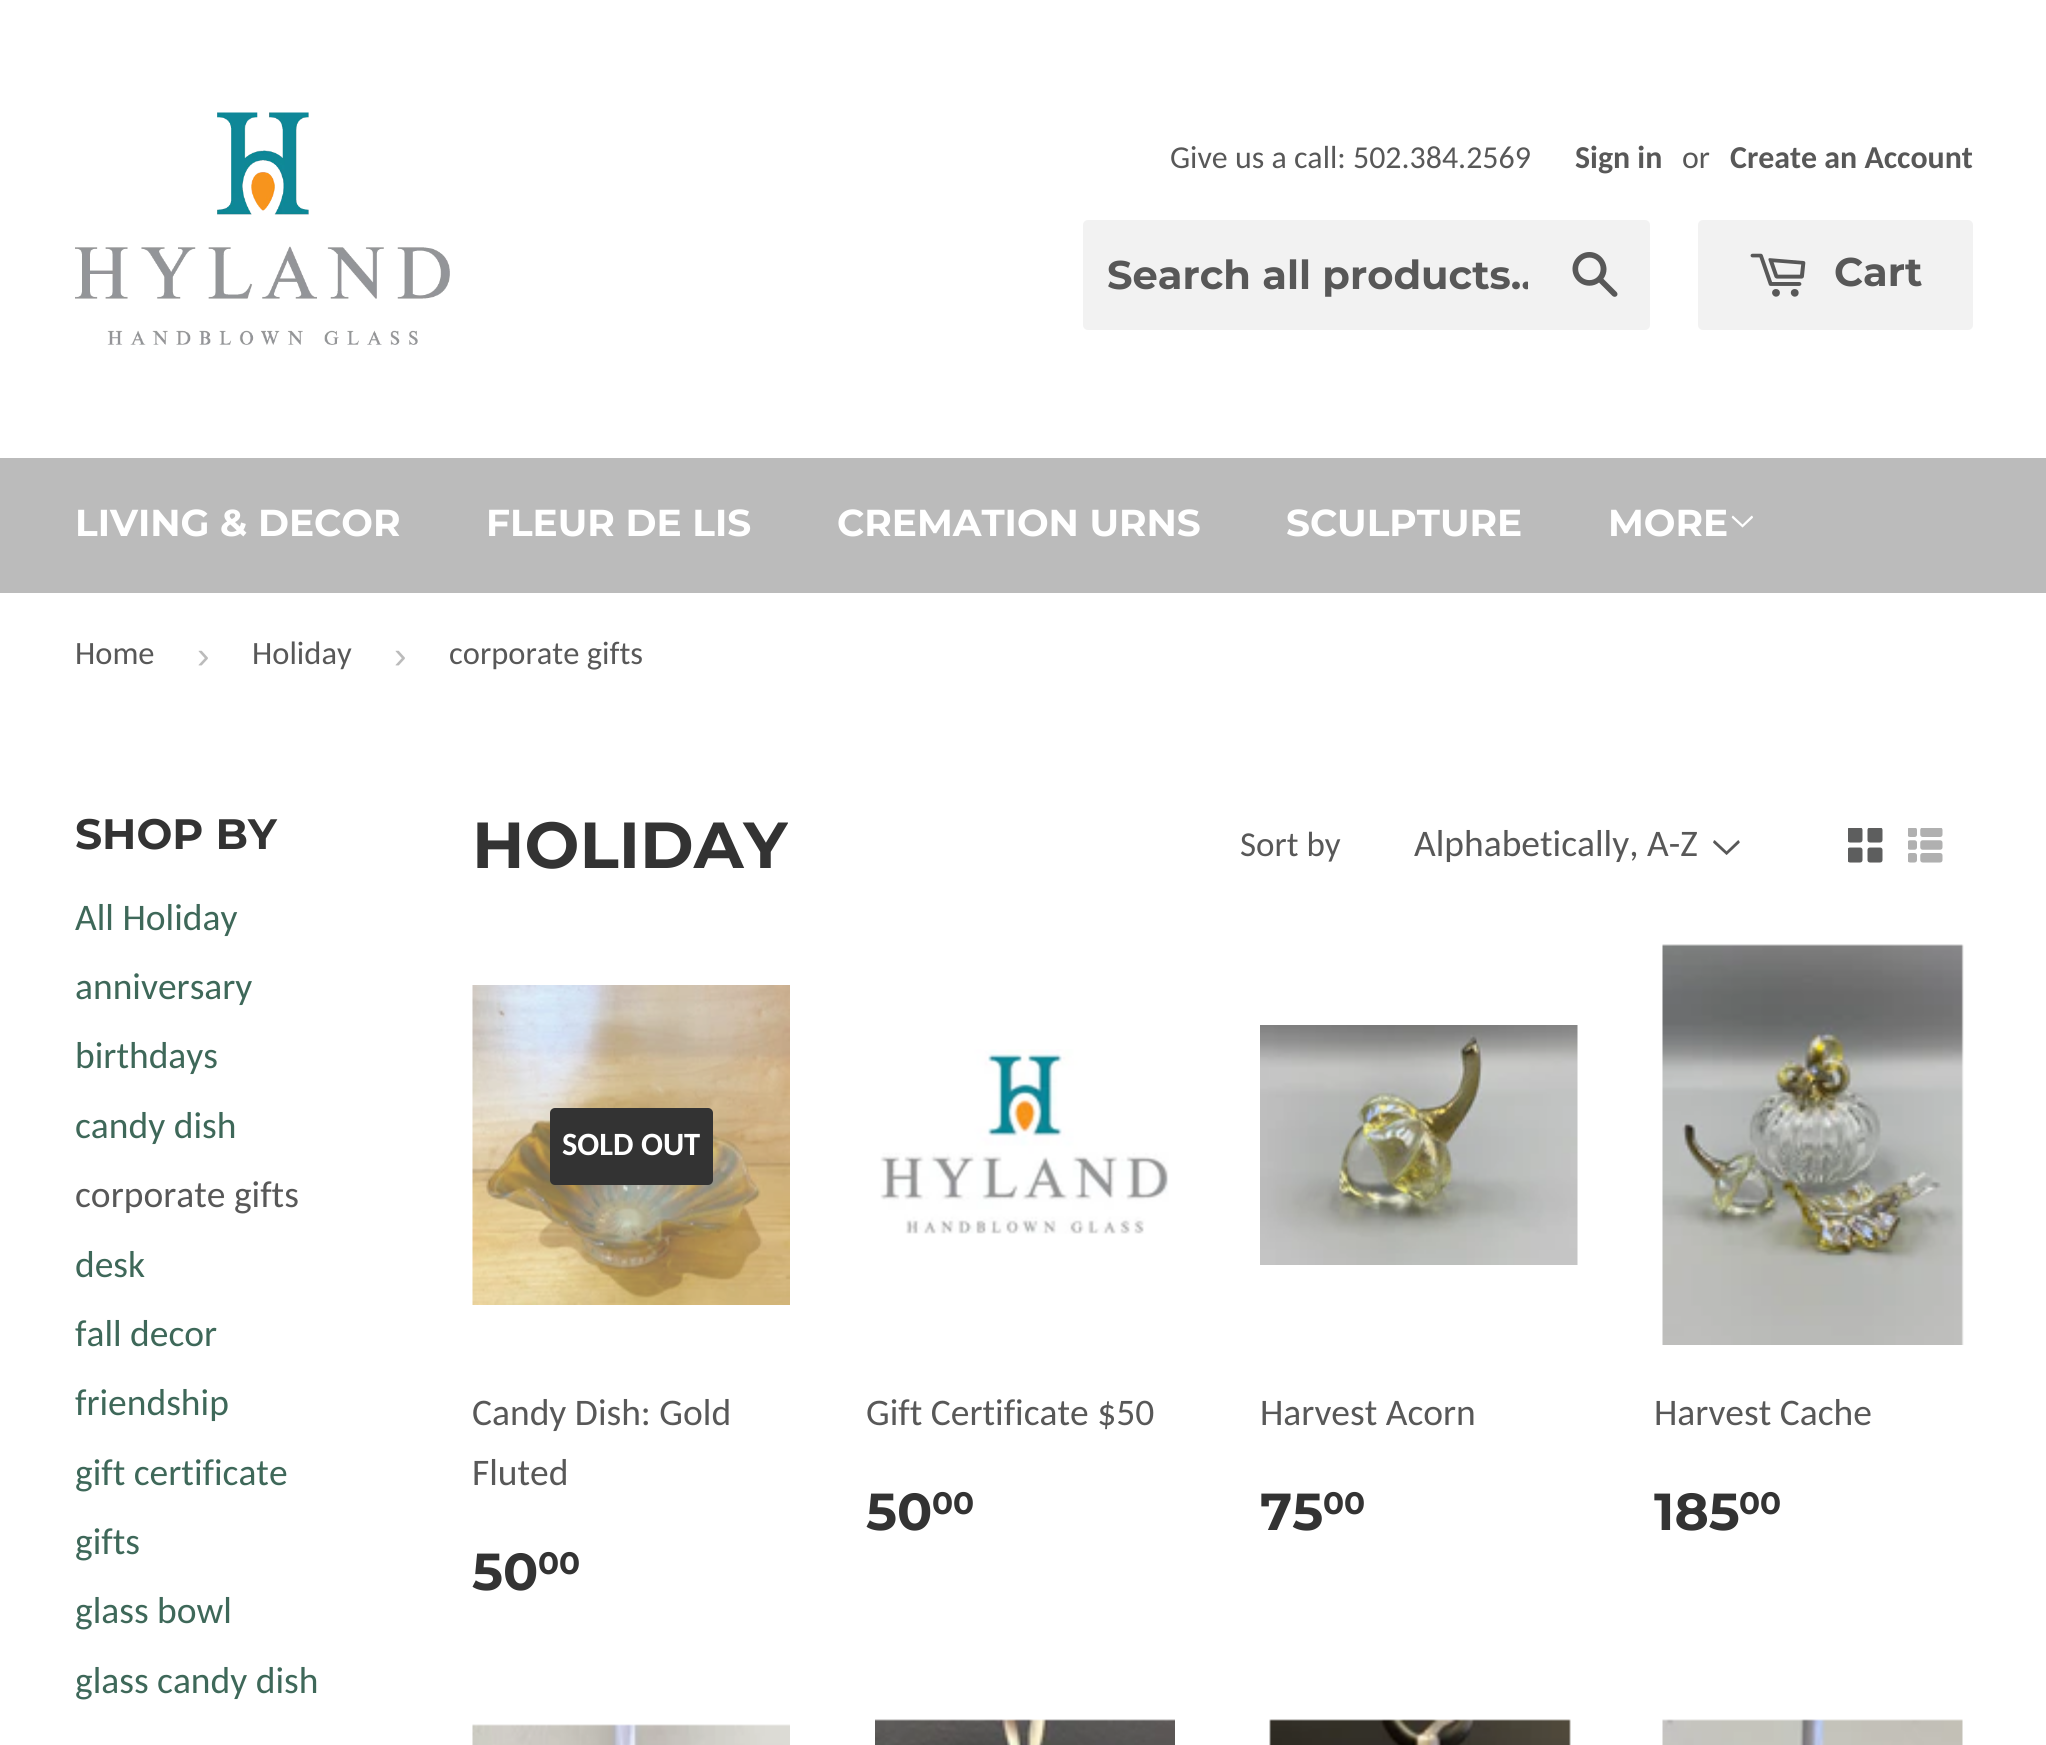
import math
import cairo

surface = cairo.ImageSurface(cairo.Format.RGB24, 2046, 1745)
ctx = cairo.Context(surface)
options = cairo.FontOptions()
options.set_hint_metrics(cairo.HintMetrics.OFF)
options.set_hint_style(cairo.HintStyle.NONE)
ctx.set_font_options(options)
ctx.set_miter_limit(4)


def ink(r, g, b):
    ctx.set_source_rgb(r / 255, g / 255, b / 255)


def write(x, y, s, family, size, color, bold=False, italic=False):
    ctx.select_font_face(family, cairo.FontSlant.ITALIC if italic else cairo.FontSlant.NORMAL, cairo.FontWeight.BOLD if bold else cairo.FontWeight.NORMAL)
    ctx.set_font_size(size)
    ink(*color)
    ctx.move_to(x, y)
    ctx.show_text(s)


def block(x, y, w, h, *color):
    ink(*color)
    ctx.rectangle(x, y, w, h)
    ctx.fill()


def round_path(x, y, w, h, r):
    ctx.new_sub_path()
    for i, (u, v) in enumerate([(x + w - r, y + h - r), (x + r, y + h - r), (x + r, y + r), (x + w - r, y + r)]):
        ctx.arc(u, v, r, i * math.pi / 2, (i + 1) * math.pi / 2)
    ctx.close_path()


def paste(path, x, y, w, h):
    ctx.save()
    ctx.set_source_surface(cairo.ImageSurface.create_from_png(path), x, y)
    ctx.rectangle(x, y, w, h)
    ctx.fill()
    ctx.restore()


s1 = dict(family="Carlito", size=31.9, color=(88, 88, 88))
s2 = dict(family="Carlito", size=31.9, color=(88, 88, 88), bold=True)
s3 = dict(family="Montserrat Thin", size=40, color=(88, 88, 88))
s4 = dict(family="Montserrat Thin", size=37.5, color=(255, 255, 255))
s5 = dict(family="Carlito", size=32.5, color=(88, 88, 88))
s6 = dict(family="Liberation Sans", size=37.5, color=(187, 187, 187))
s7 = dict(family="Montserrat Thin", size=42.5, color=(51, 51, 51))
s8 = dict(family="Carlito", size=37.5, color=(62, 104, 89))
s9 = dict(family="Carlito", size=37.5, color=(88, 88, 88))
s10 = dict(family="Montserrat Thin", size=65, color=(51, 51, 51))
s11 = dict(family="Carlito", size=35, color=(88, 88, 88))
s12 = dict(family="Carlito", size=32.5, color=(255, 255, 255), bold=True)
s13 = dict(family="Montserrat Thin", size=52, color=(51, 51, 51))
s14 = dict(family="Montserrat Thin", size=31, color=(51, 51, 51))

ink(255, 255, 255)
ctx.paint()
paste("pic1.png", 75, 112, 375, 233)
write(1170, 168, "Give us a call: 502.384.2569", **s1)
write(1575, 168, "Sign in", **s2)
write(1682, 168, "or", **s1)
write(1730, 168, "Create an Account", **s2)
ink(242, 242, 242)
round_path(1083, 220, 567, 110, 5)
ctx.fill()
ctx.save()
ctx.rectangle(1108, 250, 420, 48)
ctx.clip()
write(1107, 289, "Search all products..", **s3)
ctx.restore()
paste("pic2.png", 1572, 252, 46, 45)
round_path(1698, 220, 275, 110, 5)
ctx.fill()
paste("pic3.png", 1750, 253, 56, 44)
write(1834, 286, "Cart", **s3)
block(0, 458, 2046, 135, 187, 187, 187)
write(75, 536, "LIVING & DECOR", **s4)
write(486, 536, "FLEUR DE LIS", **s4)
write(837, 536, "CREMATION URNS", **s4)
write(1286, 536, "SCULPTURE", **s4)
write(1608, 536, "MORE", **s4)
paste("pic4.png", 1731, 515, 22, 13)
write(75, 664, "Home", **s5)
write(197, 668, "›", **s6)
write(252, 664, "Holiday", **s5)
write(394, 668, "›", **s6)
ctx.save()
ctx.rectangle(450, 593, 210, 125)
ctx.clip()
write(449, 664, "corporate gifts", **s5)
ctx.restore()
write(75, 849, "SHOP BY", **s7)
write(75, 930, "All Holiday", **s8)
write(75, 999, "anniversary", **s8)
write(75, 1068, "birthdays", **s8)
write(75, 1138, "candy dish", **s8)
write(75, 1207, "corporate gifts", **s9)
write(75, 1277, "desk", **s8)
write(75, 1346, "fall decor", **s8)
write(75, 1415, "friendship", **s8)
write(75, 1485, "gift certificate", **s8)
write(75, 1554, "gifts", **s8)
write(75, 1623, "glass bowl", **s8)
write(75, 1693, "glass candy dish", **s8)
write(472, 868, "HOLIDAY", **s10)
write(1240, 856, "Sort by", **s11)
paste("pic5.png", 1713, 840, 27, 15)
write(1414, 856, "Alphabetically, A-Z", **s9)
paste("pic6.png", 1848, 828, 35, 35)
paste("pic7.png", 1908, 828, 35, 35)
paste("pic8.png", 472, 985, 318, 320)
ink(51, 51, 51)
round_path(550, 1108, 163, 77, 5)
ctx.fill()
write(562, 1155, "SOLD OUT", **s12)
write(472, 1425, "Candy Dish: Gold", **s9)
write(472, 1485, "Fluted", **s9)
write(472, 1590, "50", **s13)
write(538, 1574, "00", **s14)
paste("pic9.png", 880, 1049, 289, 185)
write(866, 1425, "Gift Certificate $50", **s9)
write(866, 1530, "50", **s13)
write(932, 1514, "00", **s14)
paste("pic10.png", 1260, 1025, 318, 240)
write(1260, 1425, "Harvest Acorn", **s9)
write(1260, 1530, "75", **s13)
write(1323, 1514, "00", **s14)
paste("pic11.png", 1662, 944, 302, 401)
write(1654, 1425, "Harvest Cache", **s9)
write(1654, 1530, "185", **s13)
write(1739, 1514, "00", **s14)
paste("pic12.png", 472, 1724, 318, 21)
paste("pic13.png", 875, 1719, 300, 26)
paste("pic14.png", 1269, 1719, 302, 26)
paste("pic15.png", 1662, 1719, 301, 26)
surface.write_to_png("screenshot.png")
